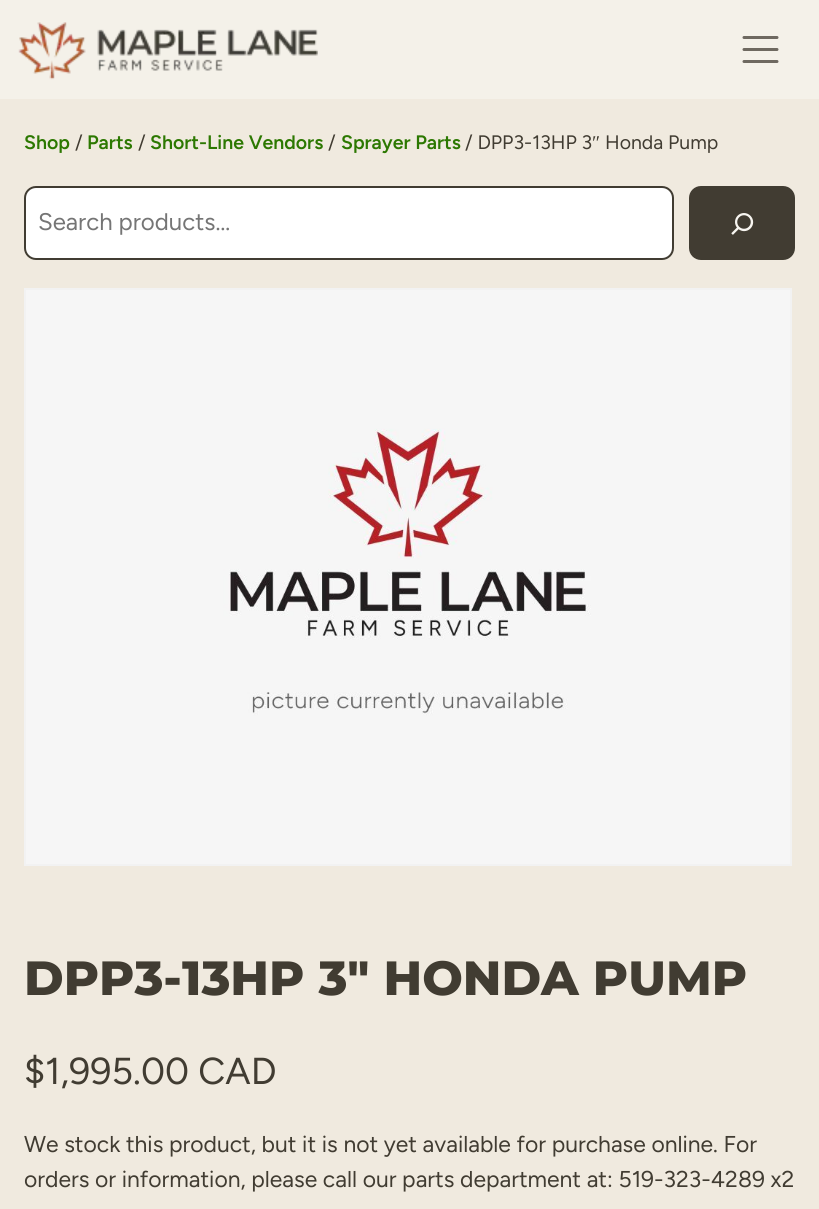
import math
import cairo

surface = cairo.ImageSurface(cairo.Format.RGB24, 819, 1209)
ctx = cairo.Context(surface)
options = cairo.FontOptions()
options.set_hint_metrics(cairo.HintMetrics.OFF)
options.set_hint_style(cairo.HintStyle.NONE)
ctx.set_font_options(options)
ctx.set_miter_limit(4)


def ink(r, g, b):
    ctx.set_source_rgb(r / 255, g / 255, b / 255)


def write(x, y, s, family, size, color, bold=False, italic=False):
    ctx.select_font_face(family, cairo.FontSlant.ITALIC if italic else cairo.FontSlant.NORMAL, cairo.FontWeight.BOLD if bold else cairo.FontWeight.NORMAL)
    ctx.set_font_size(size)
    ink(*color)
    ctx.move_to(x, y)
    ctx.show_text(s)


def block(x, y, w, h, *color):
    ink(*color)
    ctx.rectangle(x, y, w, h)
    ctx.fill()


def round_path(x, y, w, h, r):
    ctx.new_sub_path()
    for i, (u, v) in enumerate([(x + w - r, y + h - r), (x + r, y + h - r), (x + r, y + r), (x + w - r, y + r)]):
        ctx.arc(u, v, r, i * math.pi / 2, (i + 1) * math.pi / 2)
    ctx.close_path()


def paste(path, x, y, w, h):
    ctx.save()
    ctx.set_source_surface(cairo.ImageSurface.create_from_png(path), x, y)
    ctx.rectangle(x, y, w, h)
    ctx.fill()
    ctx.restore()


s1 = dict(family="Figtree SemiBold", size=19.5, color=(44, 120, 1))
s2 = dict(family="Figtree", size=19.5, color=(65, 60, 50))
s3 = dict(family="Liberation Serif", size=19.5, color=(65, 60, 50))
s4 = dict(family="Figtree", size=24, color=(117, 117, 117))
s5 = dict(family="Montserrat ExtraBold", size=48, color=(65, 60, 50))
s6 = dict(family="Figtree", size=37.5, color=(65, 60, 50))
s7 = dict(family="Figtree", size=22.9, color=(65, 60, 50))

ink(240, 234, 223)
ctx.paint()
block(0, 0, 819, 99, 244, 241, 233)
paste("pic1.png", 18, 22, 300, 58)
ctx.new_path()
ctx.move_to(744, 37.5)
ctx.line_to(777, 37.5)
ctx.move_to(744, 49.5)
ctx.line_to(777, 49.5)
ctx.move_to(744, 61.5)
ctx.line_to(777, 61.5)
ink(110, 105, 96)
ctx.set_line_width(3)
ctx.set_line_cap(cairo.LineCap.ROUND)
ctx.stroke()
write(24, 149, "Shop", **s1)
write(75, 149, "/", **s2)
write(87, 149, "Parts", **s1)
write(138, 149, "/", **s2)
write(150, 149, "Short-Line Vendors", **s1)
write(328, 149, "/", **s2)
write(341, 149, "Sprayer Parts", **s1)
write(465, 149, "/ DPP3-13HP 3", **s2)
write(592, 149, "″", **s3)
write(605, 149, "Honda Pump", **s2)
ink(255, 255, 255)
round_path(25, 187, 648, 72, 11)
ctx.fill_preserve()
ink(65, 60, 50)
ctx.set_line_width(2)
ctx.set_line_cap(cairo.LineCap.BUTT)
ctx.stroke()
write(38, 230, "Search products…", **s4)
ink(65, 60, 50)
round_path(689, 186, 106, 74, 12)
ctx.fill()
paste("pic2.png", 731, 213, 23, 22)
ctx.rectangle(25, 289, 766, 576)
ink(242, 242, 242)
ctx.stroke()
paste("pic3.png", 26, 290, 764, 574)
write(24, 995, "DPP3-13HP 3″ HONDA PUMP", **s5)
write(24, 1084, "$1,995.00 CAD", **s6)
write(24, 1152, "We stock this product, but it is not yet available for purchase online. For", **s7)
write(24, 1187, "orders or information, please call our parts department at: 519-323-4289 x2", **s7)
surface.write_to_png("screenshot.png")
